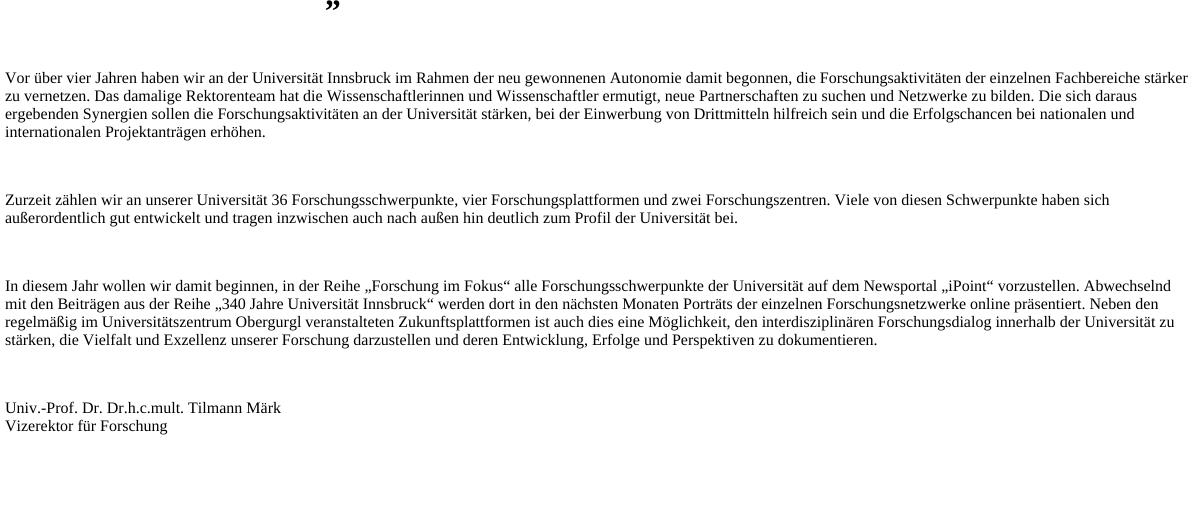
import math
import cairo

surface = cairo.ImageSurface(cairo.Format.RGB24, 1193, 517)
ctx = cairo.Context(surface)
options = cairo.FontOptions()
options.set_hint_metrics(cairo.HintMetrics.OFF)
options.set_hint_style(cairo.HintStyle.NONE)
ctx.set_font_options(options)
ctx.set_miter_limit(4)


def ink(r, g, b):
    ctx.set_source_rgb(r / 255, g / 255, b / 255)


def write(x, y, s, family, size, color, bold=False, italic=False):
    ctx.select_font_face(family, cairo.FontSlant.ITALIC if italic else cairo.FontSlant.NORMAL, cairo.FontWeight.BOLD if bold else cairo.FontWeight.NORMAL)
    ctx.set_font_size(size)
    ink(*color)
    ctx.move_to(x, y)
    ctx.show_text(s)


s1 = dict(family="Liberation Serif", size=32, color=(0, 0, 0), bold=True)
s2 = dict(family="Liberation Serif", size=16, color=(0, 0, 0))

ink(255, 255, 255)
ctx.paint()
write(325, 5, "„", **s1)
write(5, 83, "Vor über vier Jahren haben wir an der Universität Innsbruck im Rahmen der neu gewonnenen Autonomie damit begonnen, die Forschungsaktivitäten der einzelnen Fachbereiche stärker", **s2)
write(5, 101, "zu vernetzen. Das damalige Rektorenteam hat die Wissenschaftlerinnen und Wissenschaftler ermutigt, neue Partnerschaften zu suchen und Netzwerke zu bilden. Die sich daraus", **s2)
write(5, 119, "ergebenden Synergien sollen die Forschungsaktivitäten an der Universität stärken, bei der Einwerbung von Drittmitteln hilfreich sein und die Erfolgschancen bei nationalen und", **s2)
write(5, 137, "internationalen Projektanträgen erhöhen.", **s2)
write(5, 205, "Zurzeit zählen wir an unserer Universität 36 Forschungsschwerpunkte, vier Forschungsplattformen und zwei Forschungszentren. Viele von diesen Schwerpunkte haben sich", **s2)
write(5, 223, "außerordentlich gut entwickelt und tragen inzwischen auch nach außen hin deutlich zum Profil der Universität bei.", **s2)
write(5, 291, "In diesem Jahr wollen wir damit beginnen, in der Reihe „Forschung im Fokus“ alle Forschungsschwerpunkte der Universität auf dem Newsportal „iPoint“ vorzustellen. Abwechselnd", **s2)
write(5, 309, "mit den Beiträgen aus der Reihe „340 Jahre Universität Innsbruck“ werden dort in den nächsten Monaten Porträts der einzelnen Forschungsnetzwerke online präsentiert. Neben den", **s2)
write(5, 327, "regelmäßig im Universitätszentrum Obergurgl veranstalteten Zukunftsplattformen ist auch dies eine Möglichkeit, den interdisziplinären Forschungsdialog innerhalb der Universität zu", **s2)
write(5, 345, "stärken, die Vielfalt und Exzellenz unserer Forschung darzustellen und deren Entwicklung, Erfolge und Perspektiven zu dokumentieren.", **s2)
write(5, 413, "Univ.-Prof. Dr. Dr.h.c.mult. Tilmann Märk", **s2)
write(5, 431, "Vizerektor für Forschung", **s2)
surface.write_to_png("screenshot.png")
